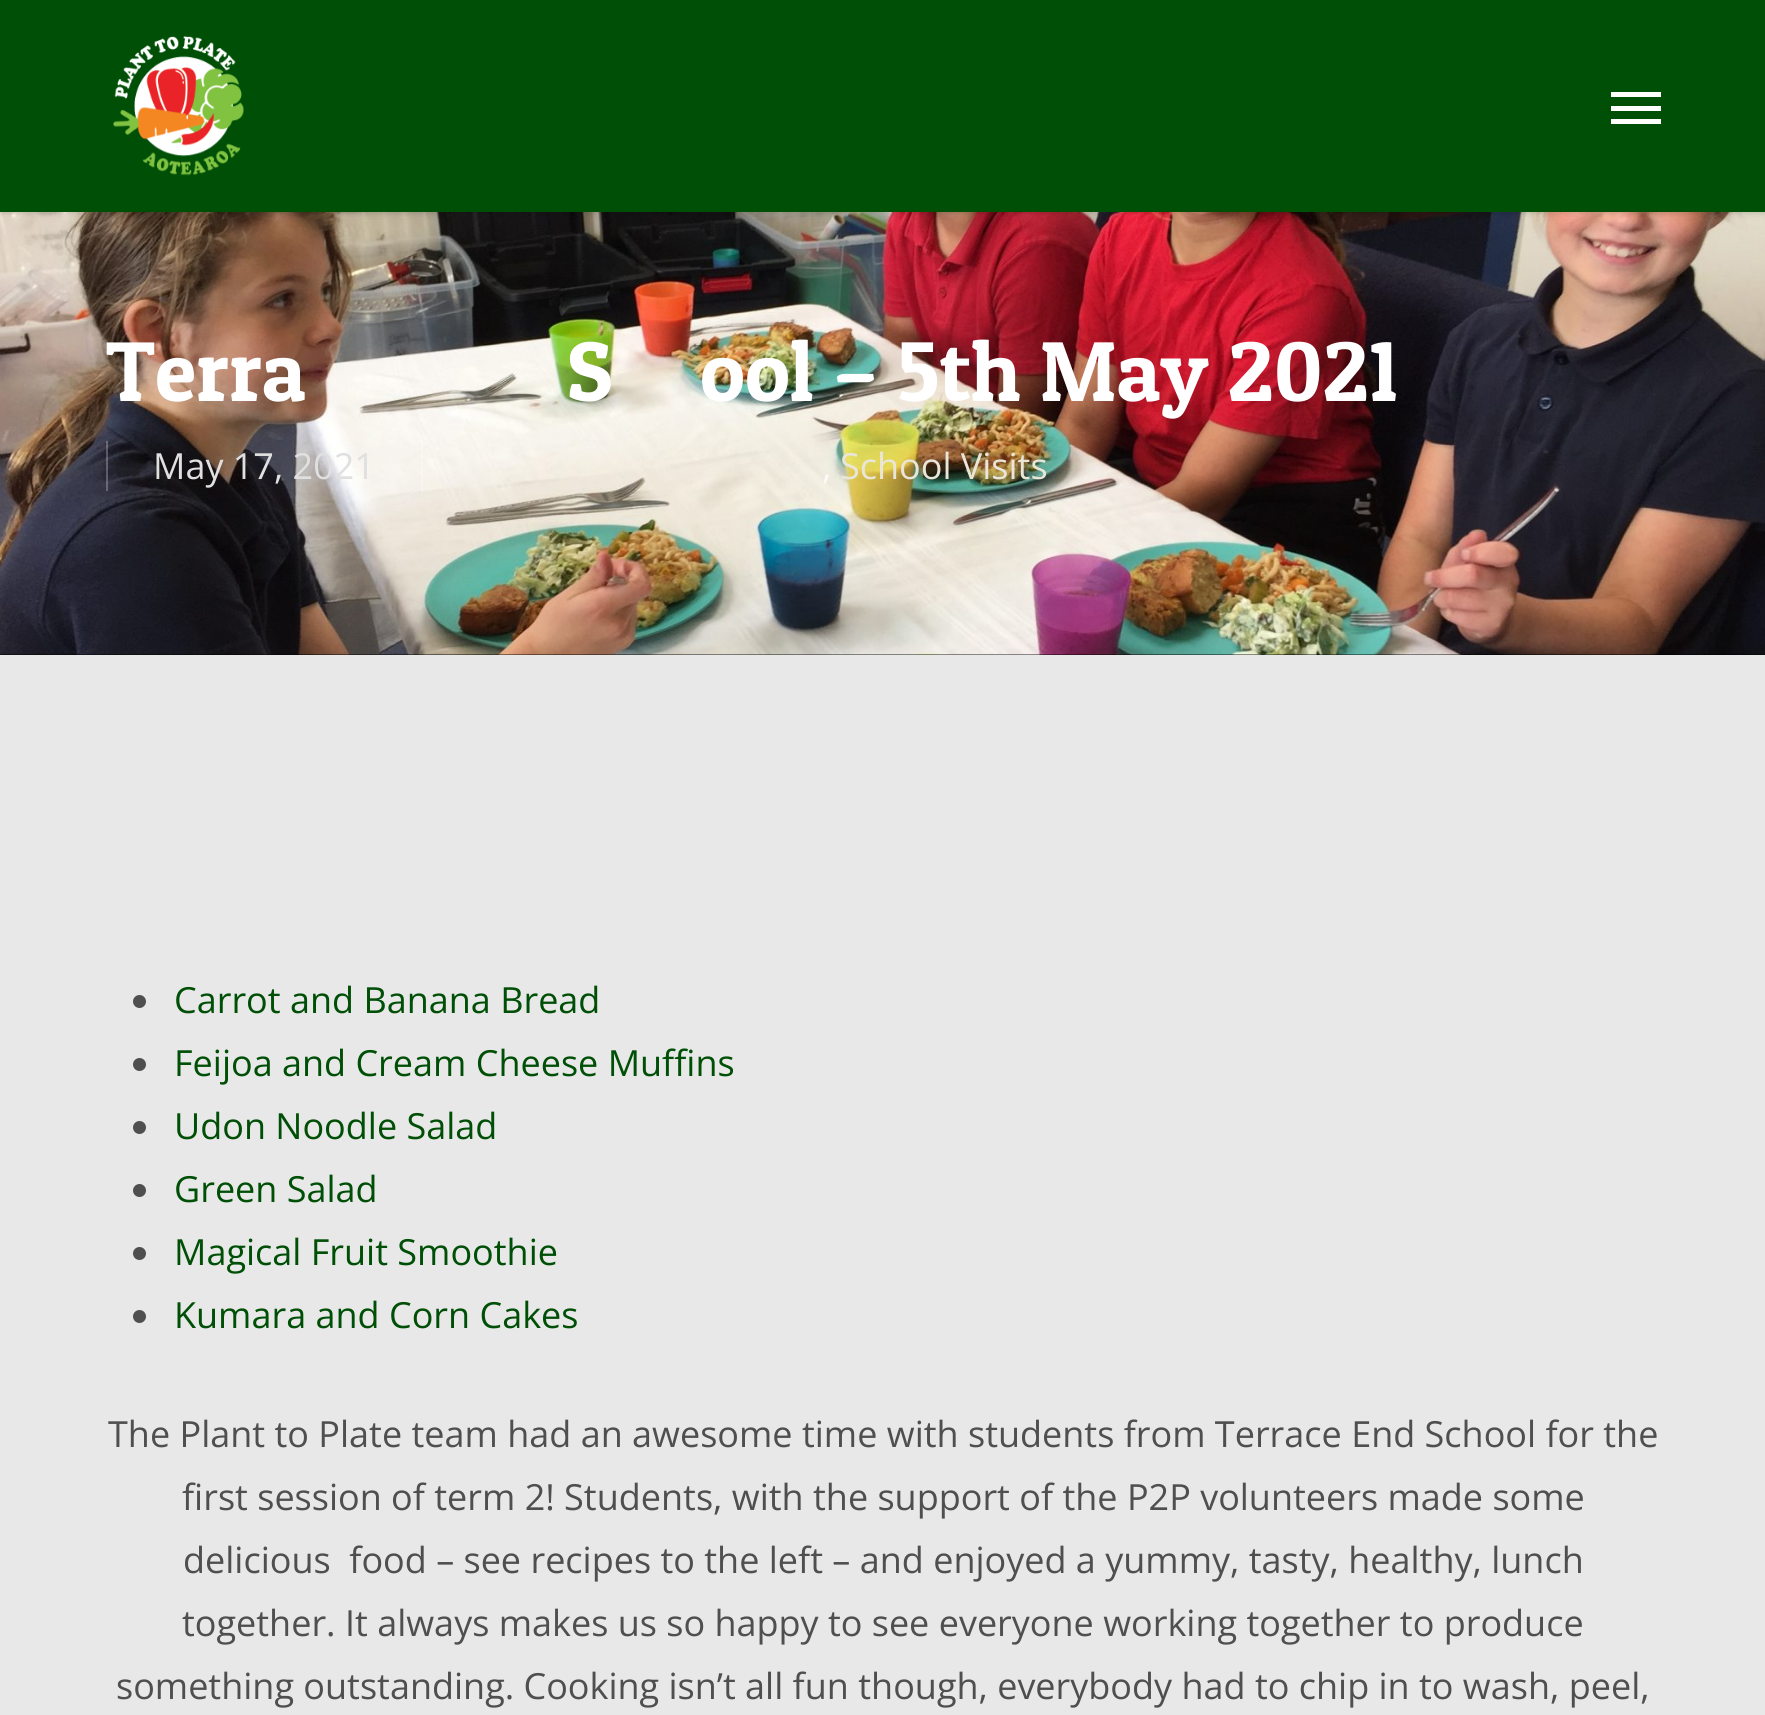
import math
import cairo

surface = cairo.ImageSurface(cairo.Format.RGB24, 1765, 1715)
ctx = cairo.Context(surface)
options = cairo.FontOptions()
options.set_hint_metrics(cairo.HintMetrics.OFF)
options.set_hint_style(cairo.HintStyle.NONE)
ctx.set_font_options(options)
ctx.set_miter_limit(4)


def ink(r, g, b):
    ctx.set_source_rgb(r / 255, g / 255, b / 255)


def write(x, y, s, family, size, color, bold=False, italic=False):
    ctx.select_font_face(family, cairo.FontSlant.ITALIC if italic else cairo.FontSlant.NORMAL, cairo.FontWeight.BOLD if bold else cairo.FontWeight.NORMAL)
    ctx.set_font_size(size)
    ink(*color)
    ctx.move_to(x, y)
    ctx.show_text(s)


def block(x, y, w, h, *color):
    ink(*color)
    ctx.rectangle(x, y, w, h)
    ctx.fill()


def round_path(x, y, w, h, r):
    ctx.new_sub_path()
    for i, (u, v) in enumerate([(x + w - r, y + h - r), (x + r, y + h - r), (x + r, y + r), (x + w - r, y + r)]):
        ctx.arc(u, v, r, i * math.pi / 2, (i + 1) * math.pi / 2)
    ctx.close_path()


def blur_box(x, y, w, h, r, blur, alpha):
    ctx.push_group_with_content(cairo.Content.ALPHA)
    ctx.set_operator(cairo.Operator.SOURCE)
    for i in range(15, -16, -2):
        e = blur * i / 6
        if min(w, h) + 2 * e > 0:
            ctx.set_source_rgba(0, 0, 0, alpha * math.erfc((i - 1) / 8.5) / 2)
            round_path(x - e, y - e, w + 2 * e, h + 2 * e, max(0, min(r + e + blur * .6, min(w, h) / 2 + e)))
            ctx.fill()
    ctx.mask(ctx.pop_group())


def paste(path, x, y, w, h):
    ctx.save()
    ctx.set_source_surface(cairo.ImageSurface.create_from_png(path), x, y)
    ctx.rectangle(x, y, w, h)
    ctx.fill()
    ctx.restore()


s1 = dict(family="Patua One", size=85, color=(255, 255, 255))
s2 = dict(family="Open Sans", size=36, color=(225, 224, 225))
s3 = dict(family="Open Sans", size=36, color=(252, 251, 249))
s4 = dict(family="Open Sans", size=36, color=(233, 230, 217))
s5 = dict(family="Open Sans", size=36, color=(0, 79, 6))
s6 = dict(family="Open Sans", size=36, color=(79, 79, 79))

ink(232, 232, 232)
ctx.paint()
block(0, 654, 1765, 1, 0, 0, 0)
paste("pic2.png", 0, 212, 1765, 443)
ink(0, 0, 0)
blur_box(0, 0, 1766, 212, 0, 3.5, 0.22)
block(0, 0, 1765, 212, 0, 79, 6)
paste("pic1.png", 113, 36, 131, 140)
block(1611, 92, 50, 5, 255, 255, 255)
block(1611, 119, 50, 5, 255, 255, 255)
block(1611, 106, 50, 5, 255, 255, 255)
write(106, 401, "Terra", **s1)
write(567, 401, "S", **s1)
write(700, 401, "ool – 5th May 2021", **s1)
write(153, 479, "May 17, 2021", **s2)
ctx.set_source_rgba(1, 1, 1, 0.25)
ctx.rectangle(106, 441, 2, 50)
ctx.fill()
write(822, 479, ",", **s3)
write(840, 479, "School Visits", **s4)
ctx.set_source_rgba(1, 1, 1, 0.25)
ctx.rectangle(421, 441, 2, 50)
ctx.fill()
ink(79, 79, 79)
ctx.arc(139.5, 1001.5, 6.5, 0, 2 * math.pi)
ctx.fill()
write(174, 1013, "Carrot and Banana Bread", **s5)
ink(79, 79, 79)
ctx.new_path()
ctx.arc(139.5, 1064.5, 6.5, 0, 2 * math.pi)
ctx.fill()
write(174, 1076, "Feijoa and Cream Cheese Muffins", **s5)
ink(79, 79, 79)
ctx.new_path()
ctx.arc(139.5, 1127.5, 6.5, 0, 2 * math.pi)
ctx.fill()
write(174, 1139, "Udon Noodle Salad", **s5)
ink(79, 79, 79)
ctx.new_path()
ctx.arc(139.5, 1190.5, 6.5, 0, 2 * math.pi)
ctx.fill()
write(174, 1202, "Green Salad", **s5)
ink(79, 79, 79)
ctx.new_path()
ctx.arc(139.5, 1253.5, 6.5, 0, 2 * math.pi)
ctx.fill()
write(174, 1265, "Magical Fruit Smoothie", **s5)
ink(79, 79, 79)
ctx.new_path()
ctx.arc(139.5, 1316.5, 6.5, 0, 2 * math.pi)
ctx.fill()
write(174, 1328, "Kumara and Corn Cakes", **s5)
write(108, 1447, "The Plant to Plate team had an awesome time with students from Terrace End School for the", **s6)
write(182, 1510, "first session of term 2! Students, with the support of the P2P volunteers made some", **s6)
write(183, 1573, "delicious  food – see recipes to the left – and enjoyed a yummy, tasty, healthy, lunch", **s6)
write(182, 1636, "together. It always makes us so happy to see everyone working together to produce", **s6)
write(116, 1699, "something outstanding. Cooking isn’t all fun though, everybody had to chip in to wash, peel,", **s6)
surface.write_to_png("screenshot.png")
